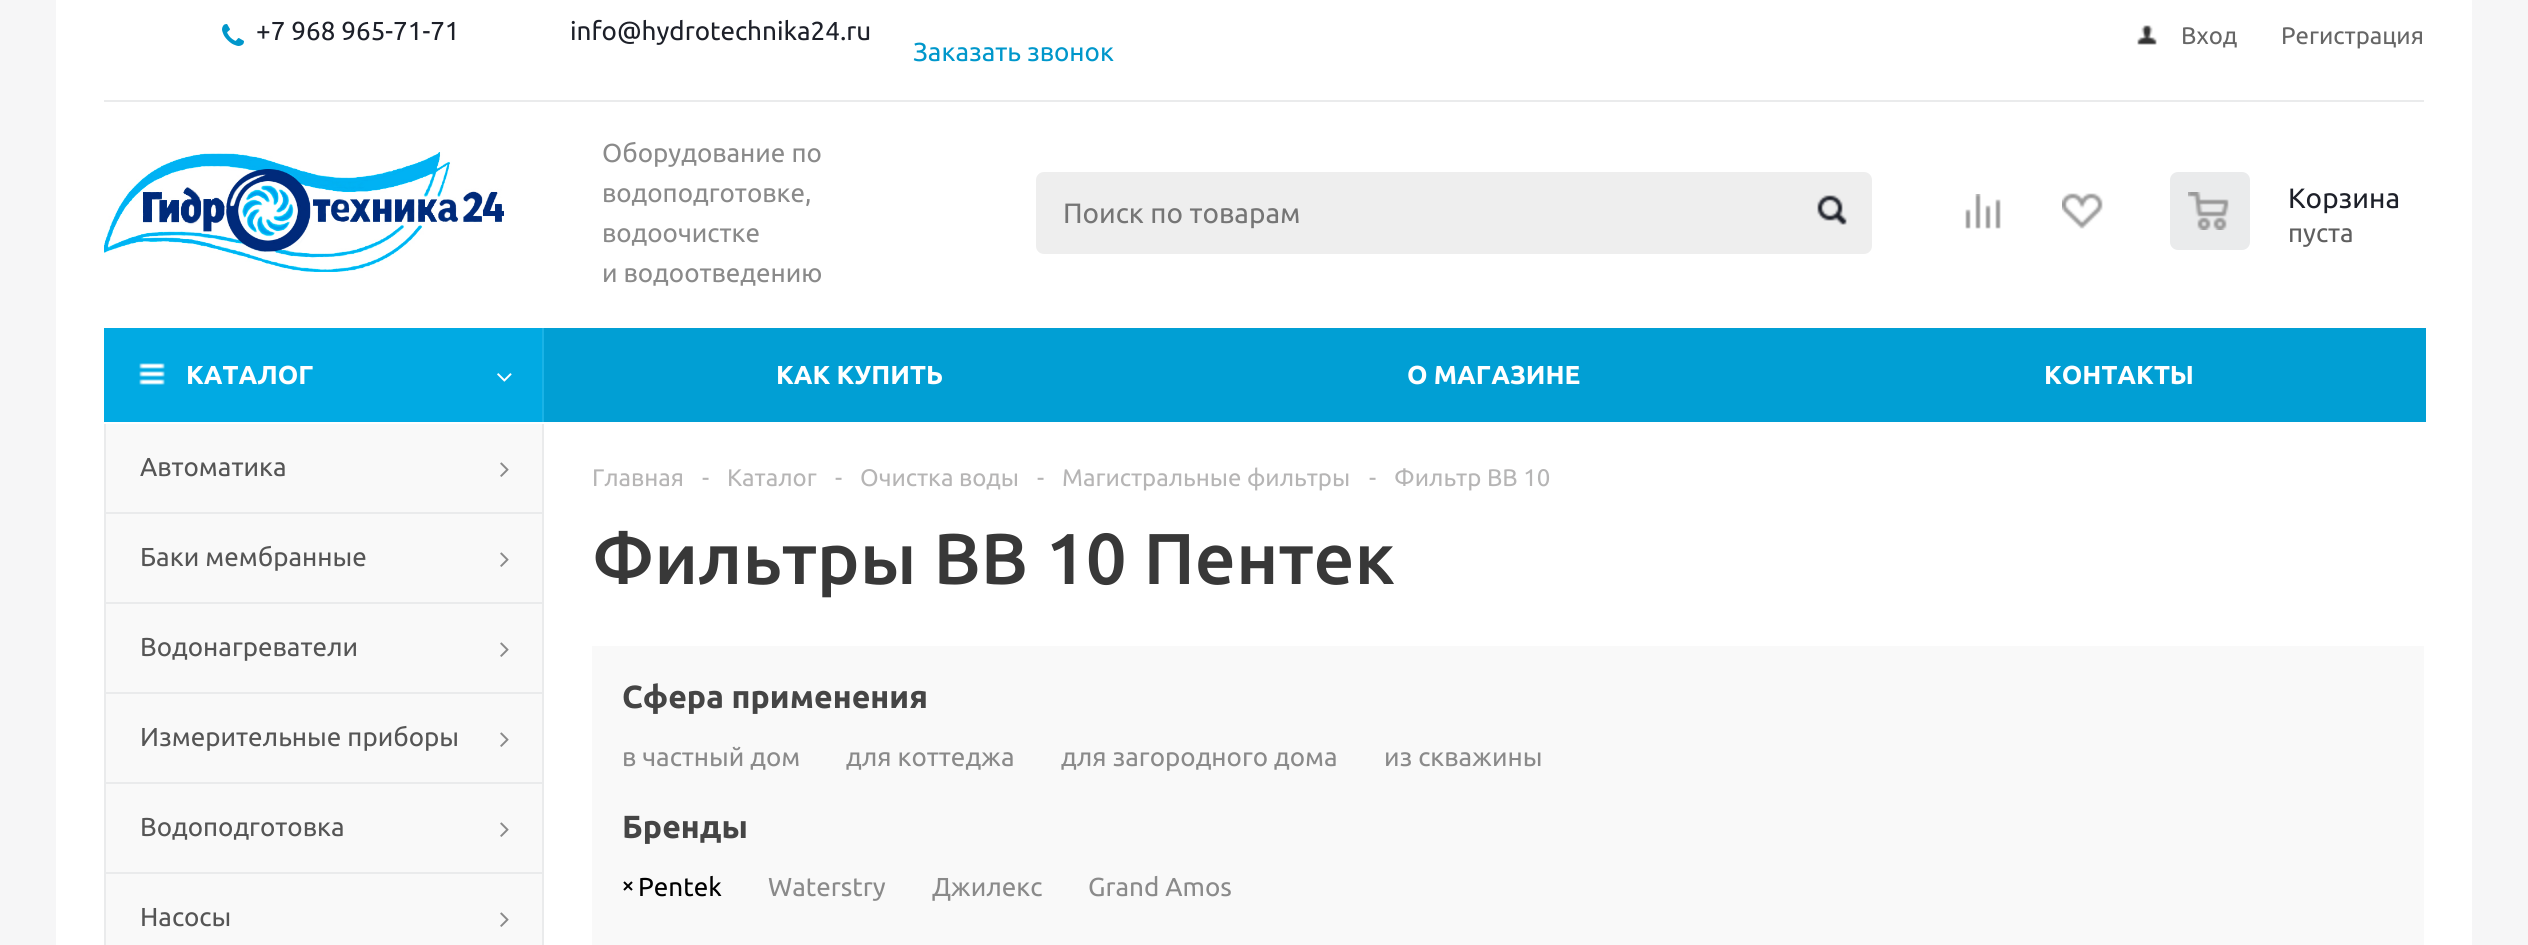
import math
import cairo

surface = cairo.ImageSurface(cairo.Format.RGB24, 2528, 945)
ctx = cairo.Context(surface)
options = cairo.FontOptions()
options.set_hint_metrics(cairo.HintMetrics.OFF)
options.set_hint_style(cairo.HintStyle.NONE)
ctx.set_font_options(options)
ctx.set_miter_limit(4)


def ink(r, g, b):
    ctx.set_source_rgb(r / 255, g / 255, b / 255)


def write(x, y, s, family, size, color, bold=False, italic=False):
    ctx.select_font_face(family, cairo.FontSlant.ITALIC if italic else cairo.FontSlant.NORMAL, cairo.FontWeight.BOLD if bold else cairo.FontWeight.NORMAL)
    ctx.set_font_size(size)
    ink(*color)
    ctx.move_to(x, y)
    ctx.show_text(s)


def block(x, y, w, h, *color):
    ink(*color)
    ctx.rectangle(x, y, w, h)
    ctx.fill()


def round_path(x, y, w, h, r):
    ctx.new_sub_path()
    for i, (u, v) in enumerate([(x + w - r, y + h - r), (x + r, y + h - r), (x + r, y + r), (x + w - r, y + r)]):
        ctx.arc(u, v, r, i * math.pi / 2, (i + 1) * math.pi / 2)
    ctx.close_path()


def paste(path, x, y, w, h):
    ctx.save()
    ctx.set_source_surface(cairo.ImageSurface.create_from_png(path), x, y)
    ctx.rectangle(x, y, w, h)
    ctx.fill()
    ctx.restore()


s1 = dict(family="Ubuntu", size=26, color=(29, 32, 41))
s2 = dict(family="Ubuntu", size=26, color=(0, 151, 203))
s3 = dict(family="Ubuntu", size=24, color=(102, 102, 102))
s4 = dict(family="Ubuntu", size=26, color=(138, 138, 138))
s5 = dict(family="Ubuntu", size=28, color=(117, 117, 117))
s6 = dict(family="Ubuntu", size=28, color=(29, 32, 41))
s7 = dict(family="Ubuntu", size=26, color=(95, 95, 95))
s8 = dict(family="Ubuntu", size=26, color=(255, 255, 255), bold=True)
s9 = dict(family="Ubuntu", size=26, color=(85, 85, 85))
s10 = dict(family="Ubuntu", size=24, color=(182, 181, 181))
s11 = dict(family="Ubuntu Medium", size=72, color=(56, 56, 56))
s12 = dict(family="Ubuntu", size=32, color=(69, 69, 69), bold=True)
s13 = dict(family="Ubuntu", size=26, color=(0, 0, 0))

ink(246, 246, 247)
ctx.paint()
block(56, 0, 2416, 945, 255, 255, 255)
paste("pic1.png", 222, 24, 22, 22)
write(256, 40, "+7 968 965-71-71", **s1)
write(570, 40, "info@hydrotechnika24.ru", **s1)
write(913, 61, "Заказать звонок", **s2)
paste("pic2.png", 2137, 25, 20, 20)
write(2181, 44, "Вход", **s3)
write(2281, 44, "Регистрация", **s3)
block(104, 100, 2320, 2, 234, 235, 236)
paste("pic3.png", 104, 152, 400, 120)
write(602, 162, "Оборудование по", **s4)
write(602, 202, "водоподготовке,", **s4)
write(602, 242, "водоочистке", **s4)
write(602, 282, "и водоотведению", **s4)
ink(238, 238, 238)
round_path(1036, 172, 836, 82, 8)
ctx.fill()
write(1063, 223, "Поиск по товарам", **s5)
paste("pic4.png", 1817, 195, 30, 30)
paste("pic5.png", 1965, 194, 36, 35)
paste("pic6.png", 2062, 193, 41, 36)
ink(234, 235, 236)
round_path(2170, 172, 80, 78, 8)
ctx.fill()
paste("pic7.png", 2188, 192, 41, 38)
write(2288, 208, "Корзина", **s6)
write(2288, 242, "пуста", **s7)
block(544, 328, 1882, 94, 1, 159, 212)
block(104, 328, 438, 94, 1, 170, 227)
paste("pic8.png", 139, 363, 26, 22)
write(186, 384, "КАТАЛОГ", **s8)
block(542, 328, 2, 94, 26, 179, 230)
paste("pic9.png", 497, 373, 15, 9)
write(776, 384, "КАК КУПИТЬ", **s8)
write(1407, 384, "О МАГАЗИНЕ", **s8)
write(2044, 384, "КОНТАКТЫ", **s8)
block(106, 424, 436, 88, 249, 249, 249)
block(542, 424, 2, 88, 234, 235, 236)
block(104, 424, 2, 88, 234, 235, 236)
write(140, 476, "Автоматика", **s9)
paste("pic10.png", 500, 462, 9, 15)
block(106, 514, 436, 88, 249, 249, 249)
block(104, 512, 440, 2, 234, 235, 236)
block(542, 512, 2, 90, 234, 235, 236)
block(104, 512, 2, 90, 234, 235, 236)
write(140, 566, "Баки мембранные", **s9)
paste("pic10.png", 500, 552, 9, 15)
block(106, 604, 436, 88, 249, 249, 249)
block(104, 602, 440, 2, 234, 235, 236)
block(542, 602, 2, 90, 234, 235, 236)
block(104, 602, 2, 90, 234, 235, 236)
write(140, 656, "Водонагреватели", **s9)
paste("pic10.png", 500, 642, 9, 15)
block(106, 694, 436, 88, 249, 249, 249)
block(104, 692, 440, 2, 234, 235, 236)
block(542, 692, 2, 90, 234, 235, 236)
block(104, 692, 2, 90, 234, 235, 236)
write(140, 746, "Измерительные приборы", **s9)
paste("pic10.png", 500, 732, 9, 15)
block(106, 784, 436, 88, 249, 249, 249)
block(104, 782, 440, 2, 234, 235, 236)
block(542, 782, 2, 90, 234, 235, 236)
block(104, 782, 2, 90, 234, 235, 236)
write(140, 836, "Водоподготовка", **s9)
paste("pic10.png", 500, 822, 9, 15)
block(106, 874, 436, 71, 249, 249, 249)
block(104, 872, 440, 2, 234, 235, 236)
block(542, 872, 2, 73, 234, 235, 236)
block(104, 872, 2, 73, 234, 235, 236)
write(140, 926, "Насосы", **s9)
paste("pic10.png", 500, 912, 9, 15)
write(592, 486, "Главная", **s10)
write(702, 486, "-", **s10)
write(727, 486, "Каталог", **s10)
write(835, 486, "-", **s10)
write(860, 486, "Очистка воды", **s10)
write(1037, 486, "-", **s10)
write(1062, 486, "Магистральные фильтры", **s10)
write(1369, 486, "-", **s10)
write(1394, 486, "Фильтр BB 10", **s10)
write(592, 584, "Фильтры BB 10 Пентек", **s11)
block(592, 646, 1832, 299, 249, 249, 249)
write(622, 708, "Сфера применения", **s12)
write(622, 766, "в частный дом", **s4)
write(846, 766, "для коттеджа", **s4)
write(1061, 766, "для загородного дома", **s4)
write(1384, 766, "из скважины", **s4)
write(622, 838, "Бренды", **s12)
paste("pic11.png", 623, 881, 10, 10)
write(638, 896, "Pentek", **s13)
write(768, 896, "Waterstry", **s4)
write(932, 896, "Джилекс", **s4)
write(1088, 896, "Grand Amos", **s4)
surface.write_to_png("screenshot.png")
